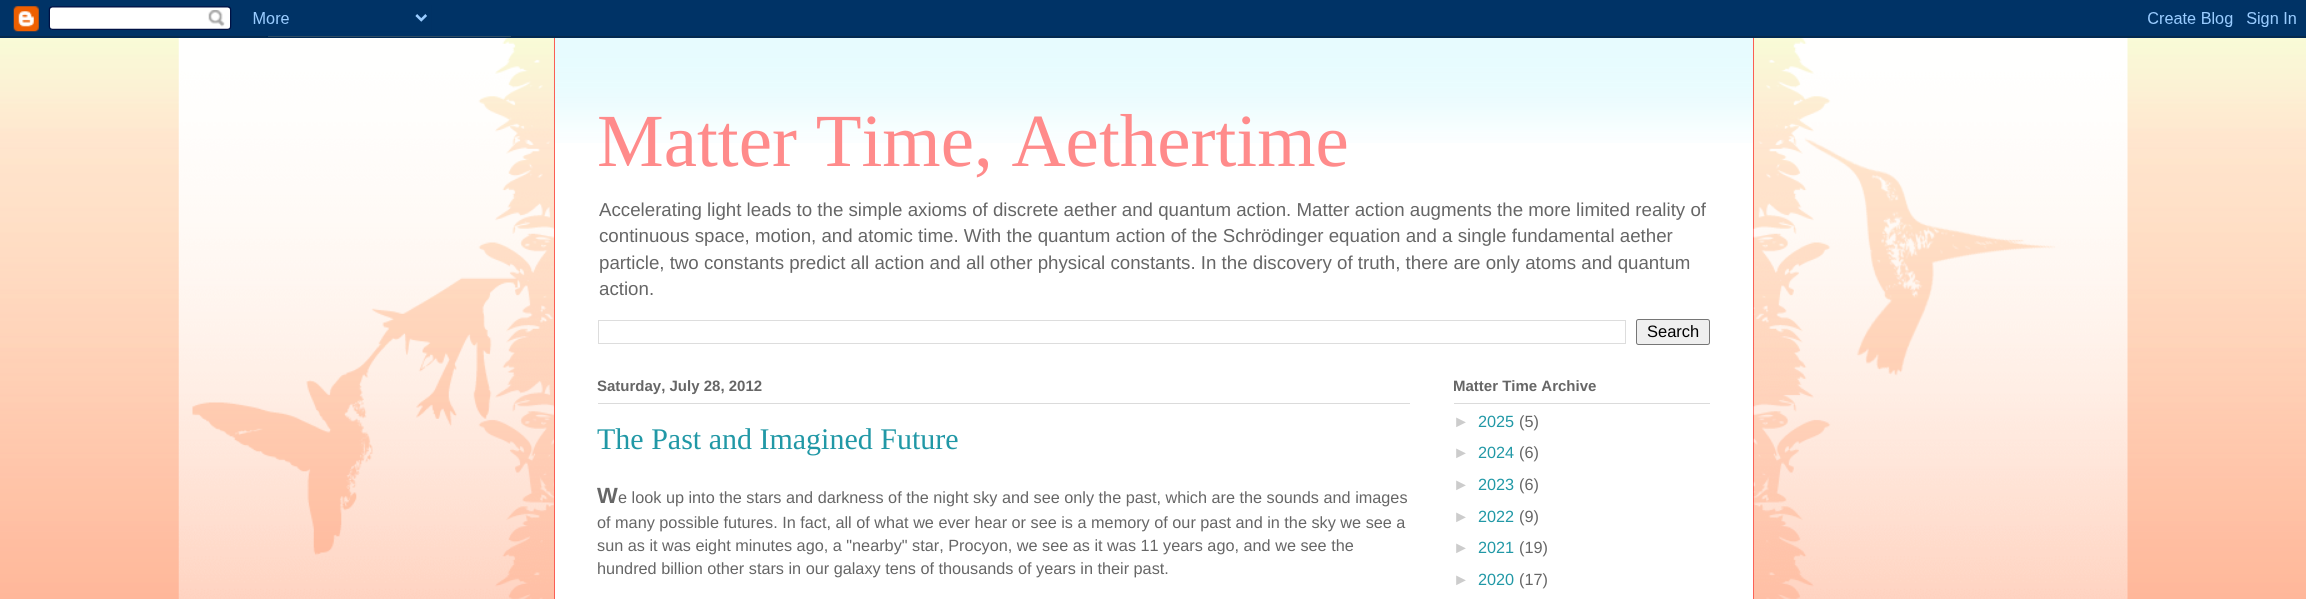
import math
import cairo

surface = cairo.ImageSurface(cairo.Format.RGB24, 2306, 599)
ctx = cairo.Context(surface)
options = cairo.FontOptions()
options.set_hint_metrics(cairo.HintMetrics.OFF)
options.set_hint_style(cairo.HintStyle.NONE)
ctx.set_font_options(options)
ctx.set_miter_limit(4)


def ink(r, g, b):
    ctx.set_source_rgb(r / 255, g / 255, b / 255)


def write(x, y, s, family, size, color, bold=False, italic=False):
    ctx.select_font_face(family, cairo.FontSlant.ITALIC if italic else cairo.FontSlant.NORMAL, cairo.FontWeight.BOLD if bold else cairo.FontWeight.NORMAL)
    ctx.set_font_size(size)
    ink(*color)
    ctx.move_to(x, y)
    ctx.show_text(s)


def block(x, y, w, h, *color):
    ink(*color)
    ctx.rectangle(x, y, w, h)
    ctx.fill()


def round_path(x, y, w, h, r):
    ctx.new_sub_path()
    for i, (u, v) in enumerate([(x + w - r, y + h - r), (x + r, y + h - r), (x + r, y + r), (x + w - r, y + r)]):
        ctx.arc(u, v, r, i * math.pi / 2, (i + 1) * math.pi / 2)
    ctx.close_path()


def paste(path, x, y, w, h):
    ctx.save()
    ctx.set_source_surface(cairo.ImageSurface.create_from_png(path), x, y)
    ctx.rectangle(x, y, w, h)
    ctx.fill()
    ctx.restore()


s1 = dict(family="Liberation Serif", size=75, color=(255, 139, 139))
s2 = dict(family="Liberation Sans", size=18.7, color=(102, 102, 102))
s3 = dict(family="Liberation Sans", size=16.5, color=(0, 0, 0))
s4 = dict(family="Liberation Sans", size=15, color=(102, 102, 102), bold=True)
s5 = dict(family="Liberation Serif", size=30, color=(33, 152, 166))
s6 = dict(family="Liberation Sans", size=22, color=(102, 102, 102), bold=True)
s7 = dict(family="Liberation Sans", size=16.25, color=(102, 102, 102))
s8 = dict(family="Liberation Sans", size=16.25, color=(204, 204, 204))
s9 = dict(family="Liberation Sans", size=16.25, color=(33, 152, 166))

ink(255, 255, 255)
ctx.paint()
paste("pic1.png", 0, 36, 2306, 563)
paste("pic2.png", 0, 0, 2306, 38)
paste("pic3.png", 178, 38, 376, 561)
block(555, 38, 1198, 561, 255, 255, 255)
paste("pic4.png", 553, 38, 1200, 105)
block(1753, 38, 1, 561, 251, 94, 83)
block(554, 38, 1, 561, 251, 94, 83)
paste("pic5.png", 1753, 38, 375, 561)
write(597, 166, "Matter Time, Aethertime", **s1)
write(599, 216, "Accelerating light leads to the simple axioms of discrete aether and quantum action. Matter action augments the more limited reality of", **s2)
write(599, 242, "continuous space, motion, and atomic time. With the quantum action of the Schrödinger equation and a single fundamental aether", **s2)
write(599, 269, "particle, two constants predict all action and all other physical constants. In the discovery of truth, there are only atoms and quantum", **s2)
write(599, 295, "action.", **s2)
ctx.rectangle(598.5, 320.5, 1027, 23)
ink(221, 221, 221)
ctx.set_line_width(1)
ctx.stroke()
ink(239, 239, 239)
round_path(1636.5, 319.5, 73, 25, 2)
ctx.fill_preserve()
ink(118, 118, 118)
ctx.stroke()
write(1647, 337, "Search", **s3)
block(598, 403, 812, 1, 219, 219, 219)
write(597, 391, "Saturday, July 28, 2012", **s4)
write(597, 449, "The Past and Imagined Future", **s5)
write(597, 503, "W", **s6)
write(618, 503, "e look up into the stars and darkness of the night sky and see only the past, which are the sounds and images", **s7)
write(597, 528, "of many possible futures. In fact, all of what we ever hear or see is a memory of our past and in the sky we see a", **s7)
write(597, 551, "sun as it was eight minutes ago, a \"nearby\" star, Procyon, we see as it was 11 years ago, and we see the", **s7)
write(597, 574, "hundred billion other stars in our galaxy tens of thousands of years in their past.", **s7)
block(1454, 403, 256, 1, 219, 219, 219)
write(1453, 391, "Matter Time Archive", **s4)
write(1453, 427, "►", **s8)
write(1478, 427, "2025", **s9)
write(1519, 427, "(5)", **s7)
write(1453, 458, "►", **s8)
write(1478, 458, "2024", **s9)
write(1519, 458, "(6)", **s7)
write(1453, 490, "►", **s8)
write(1478, 490, "2023", **s9)
write(1519, 490, "(6)", **s7)
write(1453, 522, "►", **s8)
write(1478, 522, "2022", **s9)
write(1519, 522, "(9)", **s7)
write(1453, 553, "►", **s8)
write(1478, 553, "2021", **s9)
write(1519, 553, "(19)", **s7)
write(1453, 585, "►", **s8)
write(1478, 585, "2020", **s9)
write(1519, 585, "(17)", **s7)
surface.write_to_png("screenshot.png")
